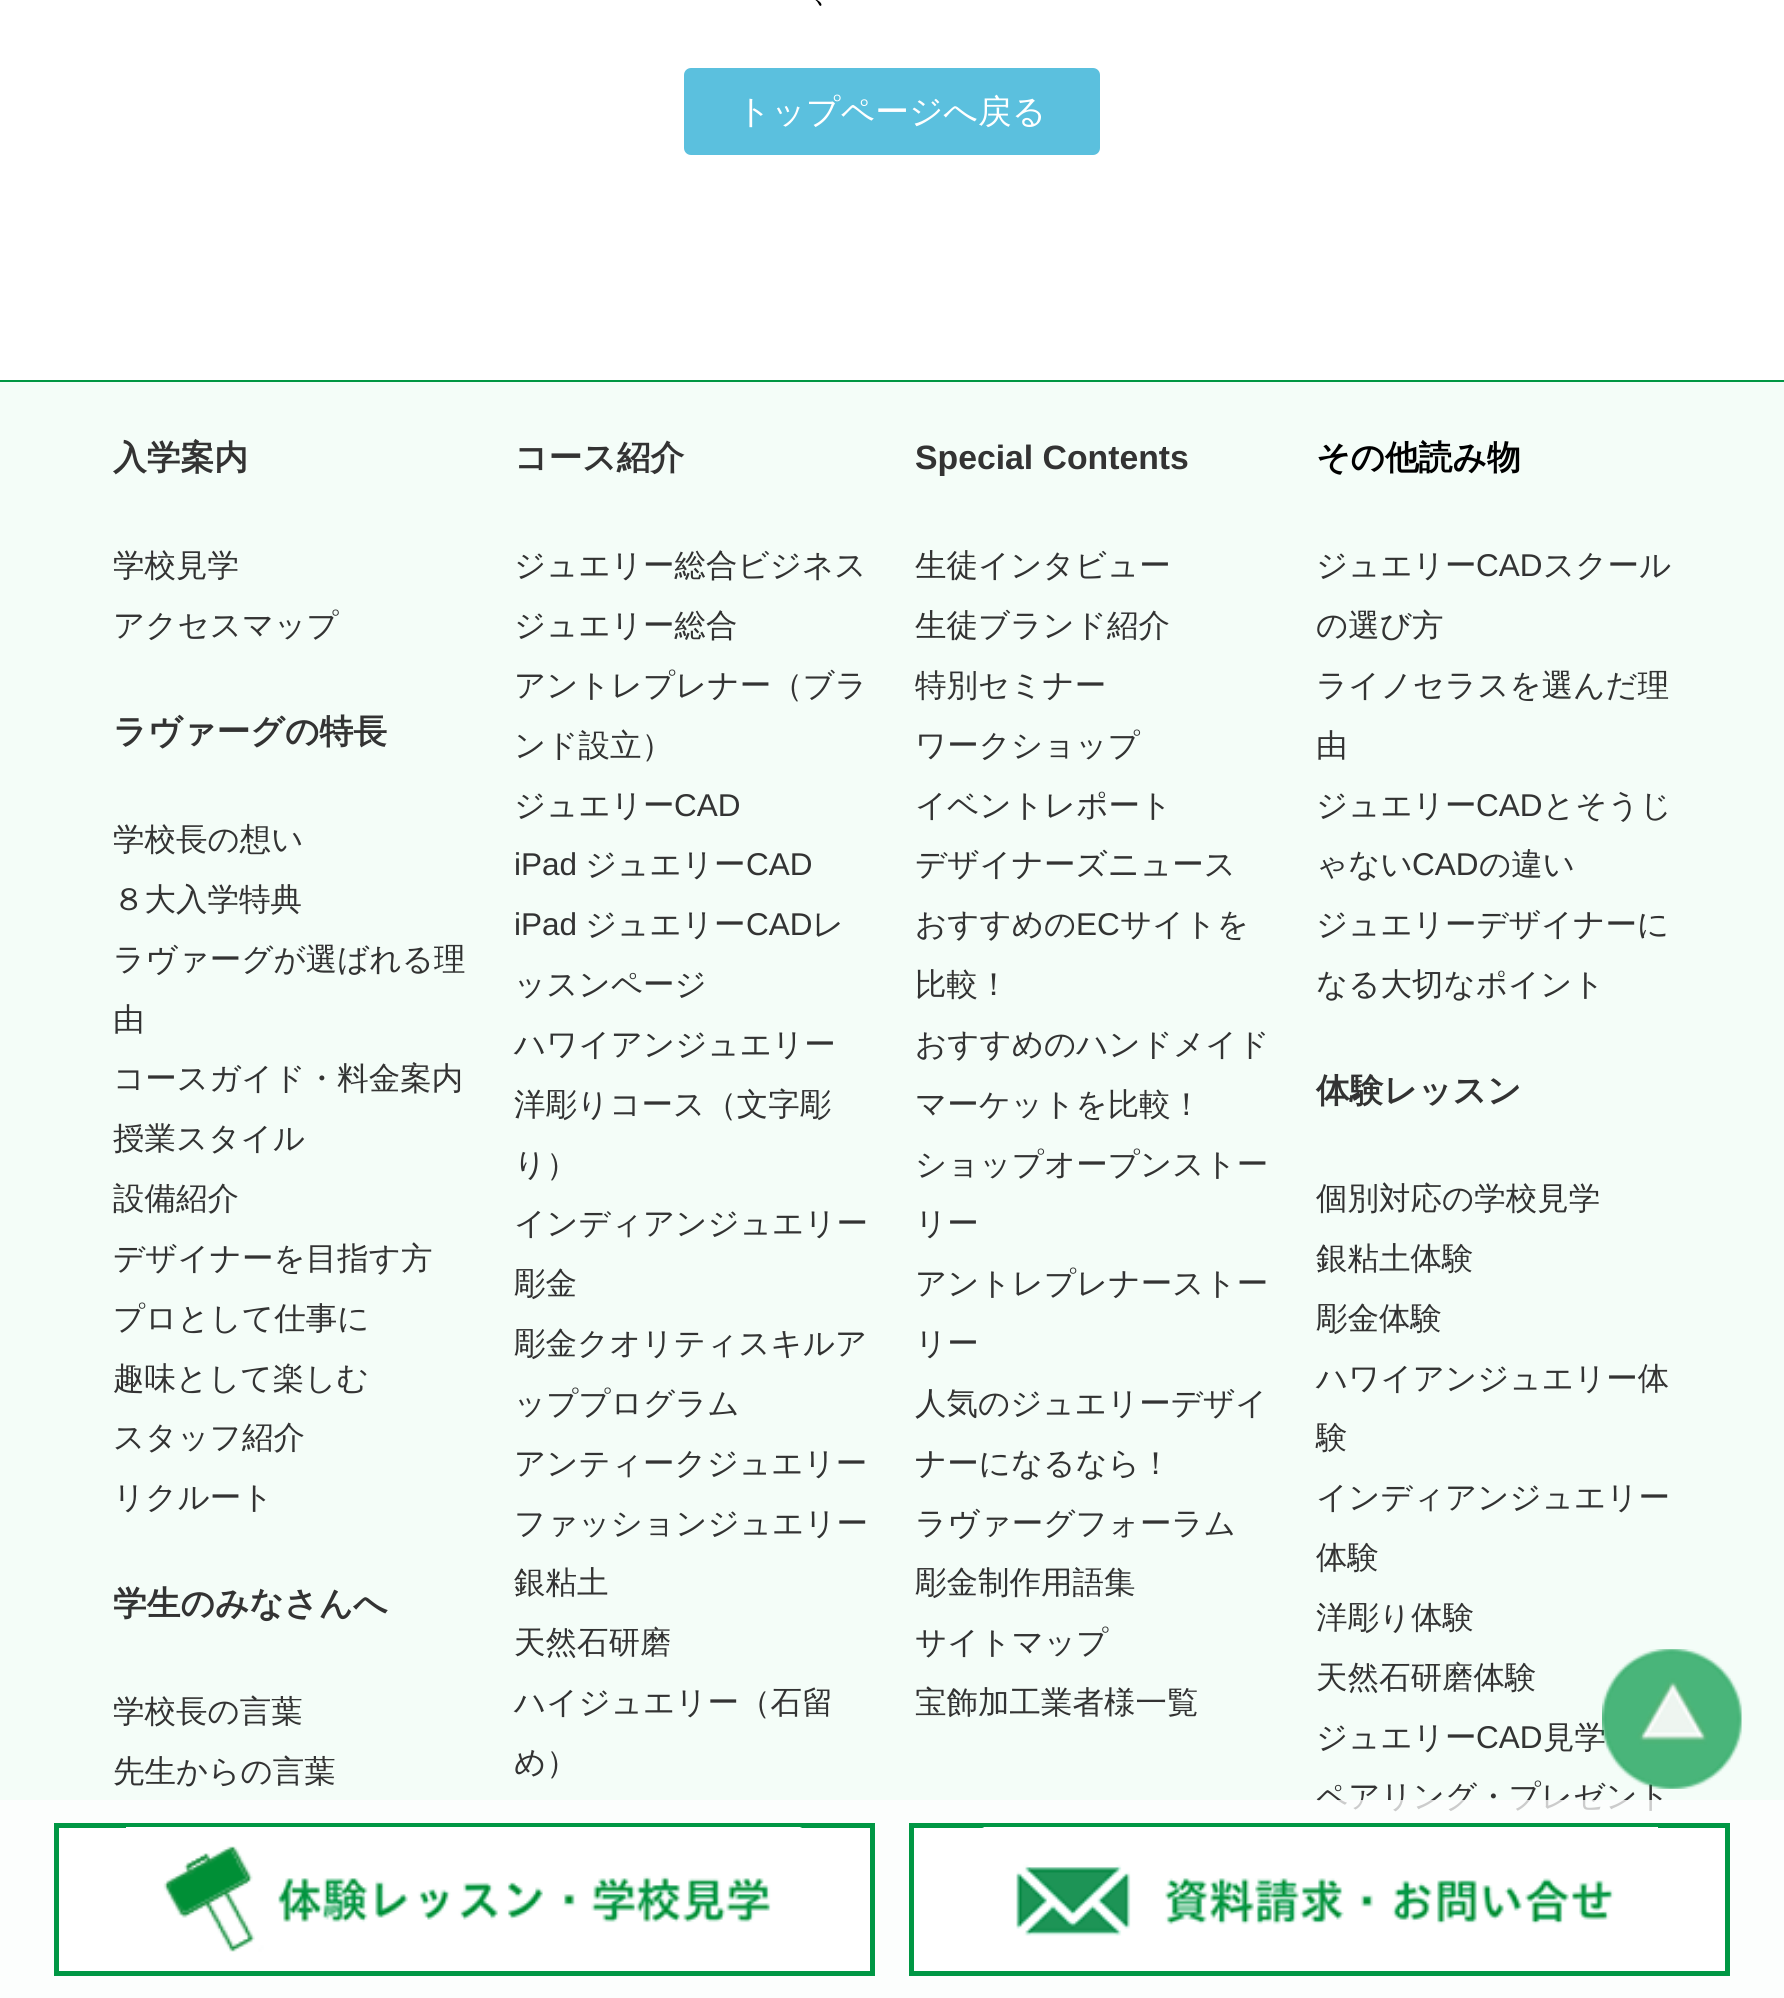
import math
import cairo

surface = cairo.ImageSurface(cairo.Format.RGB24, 1784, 1998)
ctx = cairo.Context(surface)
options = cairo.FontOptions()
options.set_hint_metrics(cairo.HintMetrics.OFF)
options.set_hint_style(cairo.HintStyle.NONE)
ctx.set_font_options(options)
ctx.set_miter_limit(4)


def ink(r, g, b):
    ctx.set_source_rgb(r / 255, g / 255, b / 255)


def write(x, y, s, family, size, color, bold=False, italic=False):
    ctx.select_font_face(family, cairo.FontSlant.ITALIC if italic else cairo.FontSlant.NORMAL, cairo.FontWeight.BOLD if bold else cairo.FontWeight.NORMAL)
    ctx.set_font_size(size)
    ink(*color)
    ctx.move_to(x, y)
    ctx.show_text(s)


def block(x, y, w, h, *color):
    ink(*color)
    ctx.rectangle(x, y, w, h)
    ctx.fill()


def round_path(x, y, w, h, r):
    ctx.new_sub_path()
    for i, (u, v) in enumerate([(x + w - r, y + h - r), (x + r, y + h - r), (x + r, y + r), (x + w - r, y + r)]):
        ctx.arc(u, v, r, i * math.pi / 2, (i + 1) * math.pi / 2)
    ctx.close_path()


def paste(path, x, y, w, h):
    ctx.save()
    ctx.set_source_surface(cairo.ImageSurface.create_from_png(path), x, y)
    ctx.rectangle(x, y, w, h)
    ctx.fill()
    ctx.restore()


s1 = dict(family="WenQuanYi Zen Hei Medium", size=31.5, color=(0, 0, 0))
s2 = dict(family="WenQuanYi Zen Hei Medium", size=33.75, color=(255, 255, 255))
s3 = dict(family="WenQuanYi Zen Hei", size=33.75, color=(51, 51, 51), bold=True)
s4 = dict(family="WenQuanYi Zen Hei Medium", size=31.5, color=(51, 51, 51))
s5 = dict(family="Liberation Sans", size=31.5, color=(51, 51, 51))
s6 = dict(family="Liberation Sans", size=33.75, color=(51, 51, 51), bold=True)
s7 = dict(family="WenQuanYi Zen Hei", size=33.75, color=(0, 0, 0), bold=True)

ink(255, 255, 255)
ctx.paint()
write(812, 2, "、", **s1)
ink(91, 192, 222)
round_path(684, 68, 416, 87, 7)
ctx.fill()
write(737, 123, "トップページへ戻る", **s2)
block(0, 382, 1784, 1616, 244, 253, 248)
block(0, 380, 1784, 2, 0, 151, 68)
write(113, 469, "入学案内", **s3)
write(113, 576, "学校見学", **s4)
write(113, 636, "アクセスマップ", **s4)
write(113, 743, "ラヴァーグの特長", **s3)
write(113, 850, "学校長の想い", **s4)
write(113, 910, "８大入学特典", **s4)
write(113, 970, "ラヴァーグが選ばれる理", **s4)
write(113, 1030, "由", **s4)
write(113, 1089, "コースガイド・料金案内", **s4)
write(113, 1149, "授業スタイル", **s4)
write(113, 1209, "設備紹介", **s4)
write(113, 1269, "デザイナーを目指す方", **s4)
write(113, 1329, "プロとして仕事に", **s4)
write(113, 1389, "趣味として楽しむ", **s4)
write(113, 1448, "スタッフ紹介", **s4)
write(113, 1508, "リクルート", **s4)
write(113, 1615, "学生のみなさんへ", **s3)
write(113, 1722, "学校長の言葉", **s4)
write(113, 1782, "先生からの言葉", **s4)
write(514, 469, "コース紹介", **s3)
write(514, 576, "ジュエリー総合ビジネス", **s4)
write(514, 636, "ジュエリー総合", **s4)
write(514, 696, "アントレプレナー（ブラ", **s4)
write(514, 756, "ンド設立）", **s4)
write(514, 816, "ジュエリー", **s4)
write(674, 816, "CAD", **s5)
write(514, 875, "iPad", **s5)
write(585, 875, "ジュエリー", **s4)
write(746, 875, "CAD", **s5)
write(514, 935, "iPad", **s5)
write(585, 935, "ジュエリー", **s4)
write(746, 935, "CAD", **s5)
write(812, 935, "レ", **s4)
write(514, 995, "ッスンページ", **s4)
write(514, 1055, "ハワイアンジュエリー", **s4)
write(514, 1115, "洋彫りコース（文字彫", **s4)
write(514, 1175, "り）", **s4)
write(514, 1234, "インディアンジュエリー", **s4)
write(514, 1294, "彫金", **s4)
write(514, 1354, "彫金クオリティスキルア", **s4)
write(514, 1414, "ッププログラム", **s4)
write(514, 1474, "アンティークジュエリー", **s4)
write(514, 1534, "ファッションジュエリー", **s4)
write(514, 1593, "銀粘土", **s4)
write(514, 1653, "天然石研磨", **s4)
write(514, 1713, "ハイジュエリー（石留", **s4)
write(514, 1773, "め）", **s4)
write(915, 469, "Special Contents", **s6)
write(915, 576, "生徒インタビュー", **s4)
write(915, 636, "生徒ブランド紹介", **s4)
write(915, 696, "特別セミナー", **s4)
write(915, 756, "ワークショップ", **s4)
write(915, 816, "イベントレポート", **s4)
write(915, 875, "デザイナーズニュース", **s4)
write(915, 935, "おすすめの", **s4)
write(1076, 935, "EC", **s5)
write(1120, 935, "サイトを", **s4)
write(915, 995, "比較！", **s4)
write(915, 1055, "おすすめのハンドメイド", **s4)
write(915, 1115, "マーケットを比較！", **s4)
write(915, 1175, "ショップオープンストー", **s4)
write(915, 1234, "リー", **s4)
write(915, 1294, "アントレプレナーストー", **s4)
write(915, 1354, "リー", **s4)
write(915, 1414, "人気のジュエリーデザイ", **s4)
write(915, 1474, "ナーになるなら！", **s4)
write(915, 1534, "ラヴァーグフォーラム", **s4)
write(915, 1593, "彫金制作用語集", **s4)
write(915, 1653, "サイトマップ", **s4)
write(915, 1713, "宝飾加工業者様一覧", **s4)
write(1316, 469, "その他読み物", **s7)
write(1316, 576, "ジュエリー", **s4)
write(1476, 576, "CAD", **s5)
write(1543, 576, "スクール", **s4)
write(1316, 636, "の選び方", **s4)
write(1316, 696, "ライノセラスを選んだ理", **s4)
write(1316, 756, "由", **s4)
write(1316, 816, "ジュエリー", **s4)
write(1476, 816, "CAD", **s5)
write(1543, 816, "とそうじ", **s4)
write(1316, 875, "ゃない", **s4)
write(1412, 875, "CAD", **s5)
write(1479, 875, "の違い", **s4)
write(1316, 935, "ジュエリーデザイナーに", **s4)
write(1316, 995, "なる大切なポイント", **s4)
write(1316, 1102, "体験レッスン", **s3)
write(1316, 1209, "個別対応の学校見学", **s4)
write(1316, 1269, "銀粘土体験", **s4)
write(1316, 1329, "彫金体験", **s4)
write(1316, 1389, "ハワイアンジュエリー体", **s4)
write(1316, 1448, "験", **s4)
write(1316, 1508, "インディアンジュエリー", **s4)
write(1316, 1568, "体験", **s4)
write(1316, 1628, "洋彫り体験", **s4)
write(1316, 1688, "天然石研磨体験", **s4)
write(1316, 1748, "ジュエリー", **s4)
write(1476, 1748, "CAD", **s5)
write(1543, 1748, "見学", **s4)
write(1316, 1807, "ペアリング・プレゼント", **s4)
ctx.set_source_rgba(1, 1, 1, 0.75)
ctx.rectangle(0, 1800, 1784, 198)
ctx.fill()
ink(255, 255, 255)
ctx.rectangle(56.5, 1825.5, 816, 148)
ctx.fill_preserve()
ink(0, 151, 68)
ctx.set_line_width(5)
ctx.stroke()
paste("pic1.png", 126, 1827, 676, 125)
ink(255, 255, 255)
ctx.rectangle(911.5, 1825.5, 816, 148)
ctx.fill_preserve()
ink(0, 151, 68)
ctx.stroke()
paste("pic2.png", 982, 1827, 676, 109)
paste("pic3.png", 1602, 1649, 140, 140)
surface.write_to_png("screenshot.png")
